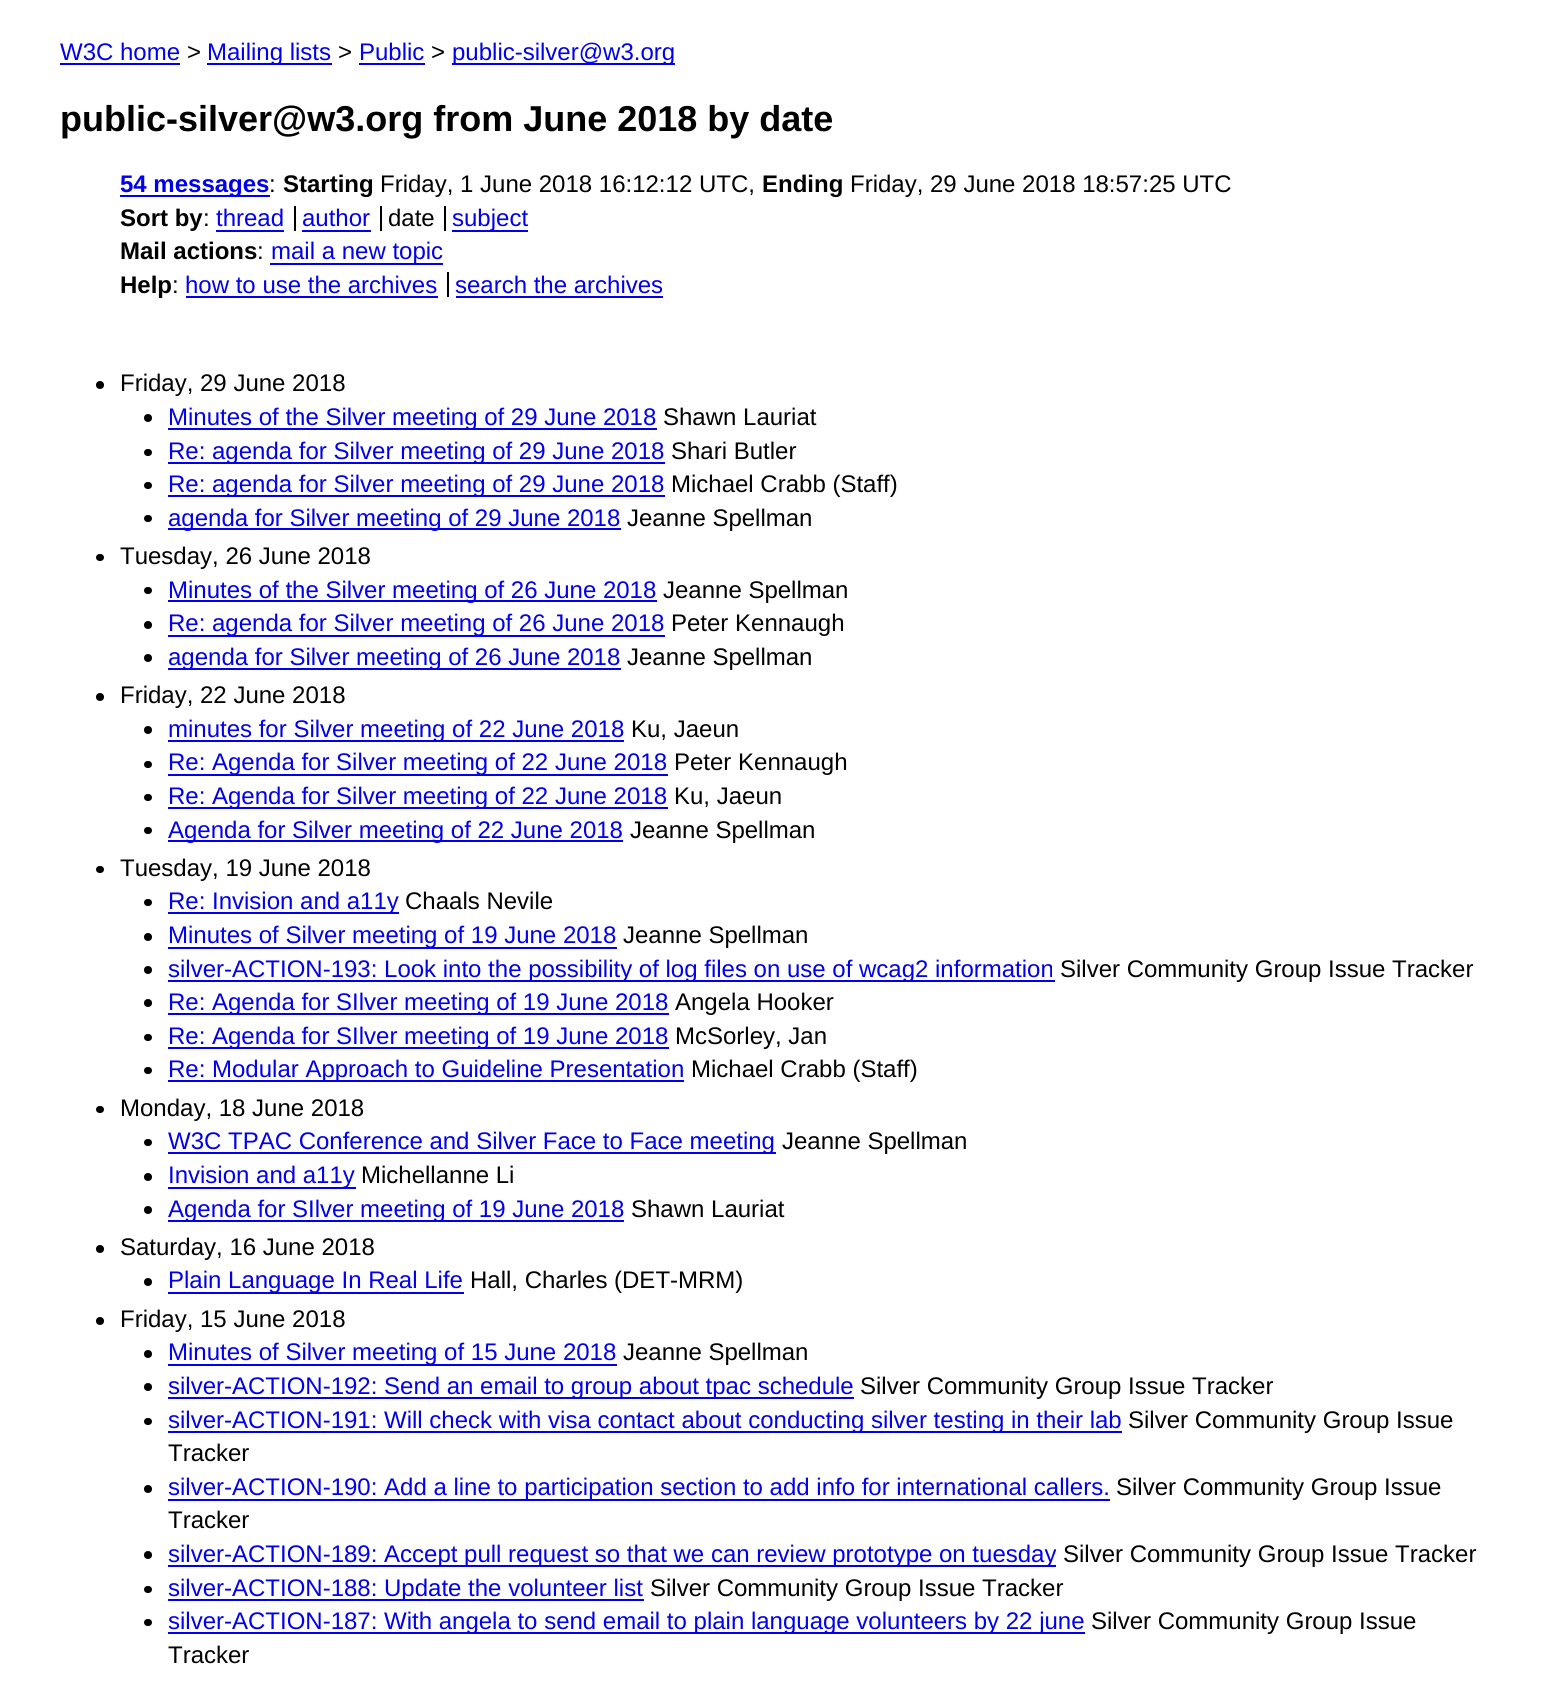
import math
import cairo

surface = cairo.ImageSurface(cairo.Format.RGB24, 1556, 1683)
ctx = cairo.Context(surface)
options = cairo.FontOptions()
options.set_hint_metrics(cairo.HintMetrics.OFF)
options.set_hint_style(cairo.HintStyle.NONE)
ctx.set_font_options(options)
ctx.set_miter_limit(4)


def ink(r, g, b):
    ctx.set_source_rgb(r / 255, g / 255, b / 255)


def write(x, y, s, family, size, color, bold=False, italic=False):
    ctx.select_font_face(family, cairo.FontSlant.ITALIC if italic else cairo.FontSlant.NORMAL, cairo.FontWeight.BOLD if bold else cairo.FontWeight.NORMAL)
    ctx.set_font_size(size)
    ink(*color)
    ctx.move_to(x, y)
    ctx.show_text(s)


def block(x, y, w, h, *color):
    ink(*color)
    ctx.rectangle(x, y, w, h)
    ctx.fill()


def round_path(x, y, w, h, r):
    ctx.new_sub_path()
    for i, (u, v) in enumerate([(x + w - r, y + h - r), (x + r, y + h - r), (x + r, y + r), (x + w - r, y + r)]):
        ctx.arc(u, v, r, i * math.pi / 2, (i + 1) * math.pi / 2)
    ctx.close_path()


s1 = dict(family="Liberation Sans", size=24, color=(0, 0, 238))
s2 = dict(family="Liberation Sans", size=24, color=(0, 0, 0))
s3 = dict(family="Liberation Sans", size=36, color=(0, 0, 0), bold=True)
s4 = dict(family="Liberation Sans", size=24, color=(0, 0, 238), bold=True)
s5 = dict(family="Liberation Sans", size=24, color=(0, 0, 0), bold=True)

ink(255, 255, 255)
ctx.paint()
write(60, 60, "W3C home", **s1)
block(60, 63, 120, 2, 0, 0, 238)
write(187, 60, ">", **s2)
block(207, 63, 125, 2, 0, 0, 238)
write(207, 60, "Mailing lists", **s1)
write(338, 60, ">", **s2)
write(359, 60, "Public", **s1)
block(359, 63, 66, 2, 0, 0, 238)
write(431, 60, ">", **s2)
block(452, 63, 223, 2, 0, 0, 238)
write(452, 60, "public-silver@w3.org", **s1)
write(60, 131, "public-silver@w3.org from June 2018 by date", **s3)
block(120, 195, 150, 2, 0, 0, 238)
write(120, 192, "54 messages", **s4)
write(269, 192, ":", **s2)
write(283, 192, "Starting", **s5)
write(380, 192, "Friday, 1 June 2018 16:12:12 UTC,", **s2)
write(762, 192, "Ending", **s5)
write(850, 192, "Friday, 29 June 2018 18:57:25 UTC", **s2)
write(120, 226, "Sort by", **s5)
write(203, 226, ":", **s2)
write(216, 226, "thread", **s1)
block(216, 230, 68, 2, 0, 0, 238)
write(302, 226, "author", **s1)
block(294, 206, 2, 25, 0, 0, 0)
block(302, 230, 69, 2, 0, 0, 238)
write(388, 226, "date", **s2)
block(380, 206, 2, 25, 0, 0, 0)
block(452, 230, 76, 2, 0, 0, 238)
write(452, 226, "subject", **s1)
block(444, 206, 2, 25, 0, 0, 0)
write(120, 259, "Mail actions", **s5)
write(257, 259, ":", **s2)
block(270, 263, 173, 2, 0, 0, 238)
write(271, 259, "mail a new topic", **s1)
write(120, 293, "Help", **s5)
write(172, 293, ":", **s2)
write(185, 293, "how to use the archives", **s1)
block(186, 296, 252, 2, 0, 0, 238)
write(455, 293, "search the archives", **s1)
block(447, 272, 2, 25, 0, 0, 0)
block(456, 296, 207, 2, 0, 0, 238)
ink(0, 0, 0)
ctx.new_path()
ctx.arc(100, 385, 4, 0, 2 * math.pi)
ctx.fill()
write(120, 391, "Friday, 29 June 2018", **s2)
ctx.new_path()
ctx.arc(148, 418, 4, 0, 2 * math.pi)
ctx.fill()
block(168, 428, 489, 2, 0, 0, 238)
write(168, 425, "Minutes of the Silver meeting of 29 June 2018", **s1)
write(663, 425, "Shawn Lauriat", **s2)
round_path(144, 449, 8, 7, 3.5)
ctx.fill()
block(168, 462, 497, 2, 0, 0, 238)
write(168, 459, "Re: agenda for Silver meeting of 29 June 2018", **s1)
write(671, 459, "Shari Butler", **s2)
round_path(144, 482, 8, 7, 3.5)
ctx.fill()
block(168, 495, 497, 2, 0, 0, 238)
write(168, 492, "Re: agenda for Silver meeting of 29 June 2018", **s1)
write(671, 492, "Michael Crabb (Staff)", **s2)
round_path(144, 515, 8, 7, 3.5)
ctx.fill()
block(168, 528, 453, 2, 0, 0, 238)
write(168, 526, "agenda for Silver meeting of 29 June 2018", **s1)
write(627, 526, "Jeanne Spellman", **s2)
round_path(96, 554, 8, 7, 3.5)
ctx.fill()
write(120, 564, "Tuesday, 26 June 2018", **s2)
round_path(144, 587, 8, 7, 3.5)
ctx.fill()
block(168, 600, 489, 2, 0, 0, 238)
write(168, 598, "Minutes of the Silver meeting of 26 June 2018", **s1)
write(663, 598, "Jeanne Spellman", **s2)
ctx.new_path()
ctx.arc(148, 625, 4, 0, 2 * math.pi)
ctx.fill()
block(168, 635, 497, 2, 0, 0, 238)
write(168, 631, "Re: agenda for Silver meeting of 26 June 2018", **s1)
write(671, 631, "Peter Kennaugh", **s2)
ctx.new_path()
ctx.arc(148, 658, 4, 0, 2 * math.pi)
ctx.fill()
block(168, 668, 453, 2, 0, 0, 238)
write(168, 665, "agenda for Silver meeting of 26 June 2018", **s1)
write(627, 665, "Jeanne Spellman", **s2)
ctx.new_path()
ctx.arc(100, 697, 4, 0, 2 * math.pi)
ctx.fill()
write(120, 703, "Friday, 22 June 2018", **s2)
ctx.new_path()
ctx.arc(148, 730, 4, 0, 2 * math.pi)
ctx.fill()
block(168, 740, 456, 2, 0, 0, 238)
write(168, 737, "minutes for Silver meeting of 22 June 2018", **s1)
write(631, 737, "Ku, Jaeun", **s2)
round_path(144, 761, 8, 7, 3.5)
ctx.fill()
block(168, 774, 500, 2, 0, 0, 238)
write(168, 770, "Re: Agenda for Silver meeting of 22 June 2018", **s1)
write(674, 770, "Peter Kennaugh", **s2)
round_path(144, 794, 8, 7, 3.5)
ctx.fill()
block(168, 807, 500, 2, 0, 0, 238)
write(168, 804, "Re: Agenda for Silver meeting of 22 June 2018", **s1)
write(674, 804, "Ku, Jaeun", **s2)
round_path(144, 827, 8, 7, 3.5)
ctx.fill()
block(168, 840, 455, 2, 0, 0, 238)
write(168, 838, "Agenda for Silver meeting of 22 June 2018", **s1)
write(630, 838, "Jeanne Spellman", **s2)
round_path(96, 866, 8, 7, 3.5)
ctx.fill()
write(120, 876, "Tuesday, 19 June 2018", **s2)
round_path(144, 899, 8, 7, 3.5)
ctx.fill()
block(168, 912, 231, 2, 0, 0, 238)
write(168, 909, "Re: Invision and a11y", **s1)
write(405, 909, "Chaals Nevile", **s2)
ctx.new_path()
ctx.arc(148, 937, 4, 0, 2 * math.pi)
ctx.fill()
block(168, 947, 449, 2, 0, 0, 238)
write(168, 943, "Minutes of Silver meeting of 19 June 2018", **s1)
write(623, 943, "Jeanne Spellman", **s2)
ctx.new_path()
ctx.arc(148, 970, 4, 0, 2 * math.pi)
ctx.fill()
block(168, 980, 887, 2, 0, 0, 238)
write(168, 977, "silver-ACTION-193: Look into the possibility of log files on use of wcag2 information", **s1)
write(1060, 977, "Silver Community Group Issue Tracker", **s2)
ctx.new_path()
ctx.arc(148, 1003, 4, 0, 2 * math.pi)
ctx.fill()
block(168, 1013, 501, 2, 0, 0, 238)
write(168, 1010, "Re: Agenda for SIlver meeting of 19 June 2018", **s1)
write(675, 1010, "Angela Hooker", **s2)
round_path(144, 1034, 8, 7, 3.5)
ctx.fill()
block(168, 1047, 501, 2, 0, 0, 238)
write(168, 1044, "Re: Agenda for SIlver meeting of 19 June 2018", **s1)
write(675, 1044, "McSorley, Jan", **s2)
round_path(144, 1067, 8, 7, 3.5)
ctx.fill()
block(168, 1080, 516, 2, 0, 0, 238)
write(168, 1077, "Re: Modular Approach to Guideline Presentation", **s1)
write(691, 1077, "Michael Crabb (Staff)", **s2)
round_path(96, 1106, 8, 7, 3.5)
ctx.fill()
write(120, 1116, "Monday, 18 June 2018", **s2)
round_path(144, 1139, 8, 7, 3.5)
ctx.fill()
block(168, 1152, 608, 2, 0, 0, 238)
write(168, 1149, "W3C TPAC Conference and Silver Face to Face meeting", **s1)
write(782, 1149, "Jeanne Spellman", **s2)
ctx.new_path()
ctx.arc(148, 1177, 4, 0, 2 * math.pi)
ctx.fill()
block(168, 1187, 188, 2, 0, 0, 238)
write(168, 1183, "Invision and a11y", **s1)
write(361, 1183, "Michellanne Li", **s2)
ctx.new_path()
ctx.arc(148, 1210, 4, 0, 2 * math.pi)
ctx.fill()
block(168, 1220, 456, 2, 0, 0, 238)
write(168, 1217, "Agenda for SIlver meeting of 19 June 2018", **s1)
write(631, 1217, "Shawn Lauriat", **s2)
ctx.new_path()
ctx.arc(100, 1249, 4, 0, 2 * math.pi)
ctx.fill()
write(120, 1255, "Saturday, 16 June 2018", **s2)
ctx.new_path()
ctx.arc(148, 1282, 4, 0, 2 * math.pi)
ctx.fill()
block(168, 1292, 296, 2, 0, 0, 238)
write(168, 1288, "Plain Language In Real Life", **s1)
write(470, 1288, "Hall, Charles (DET-MRM)", **s2)
ctx.new_path()
ctx.arc(100, 1321, 4, 0, 2 * math.pi)
ctx.fill()
write(120, 1327, "Friday, 15 June 2018", **s2)
ctx.new_path()
ctx.arc(148, 1354, 4, 0, 2 * math.pi)
ctx.fill()
block(168, 1364, 449, 2, 0, 0, 238)
write(168, 1360, "Minutes of Silver meeting of 15 June 2018", **s1)
write(623, 1360, "Jeanne Spellman", **s2)
ctx.new_path()
ctx.arc(148, 1387, 4, 0, 2 * math.pi)
ctx.fill()
block(168, 1397, 686, 2, 0, 0, 238)
write(168, 1394, "silver-ACTION-192: Send an email to group about tpac schedule", **s1)
write(860, 1394, "Silver Community Group Issue Tracker", **s2)
round_path(144, 1418, 8, 7, 3.5)
ctx.fill()
block(168, 1431, 954, 2, 0, 0, 238)
write(168, 1428, "silver-ACTION-191: Will check with visa contact about conducting silver testing in their lab", **s1)
write(1128, 1428, "Silver Community Group Issue", **s2)
write(168, 1461, "Tracker", **s2)
ctx.new_path()
ctx.arc(148, 1489, 4, 0, 2 * math.pi)
ctx.fill()
block(168, 1499, 942, 2, 0, 0, 238)
write(168, 1495, "silver-ACTION-190: Add a line to participation section to add info for international callers.", **s1)
write(1116, 1495, "Silver Community Group Issue", **s2)
write(168, 1528, "Tracker", **s2)
ctx.new_path()
ctx.arc(148, 1555, 4, 0, 2 * math.pi)
ctx.fill()
block(168, 1565, 888, 2, 0, 0, 238)
write(168, 1562, "silver-ACTION-189: Accept pull request so that we can review prototype on tuesday", **s1)
write(1063, 1562, "Silver Community Group Issue Tracker", **s2)
round_path(144, 1586, 8, 7, 3.5)
ctx.fill()
block(168, 1599, 476, 2, 0, 0, 238)
write(168, 1596, "silver-ACTION-188: Update the volunteer list", **s1)
write(650, 1596, "Silver Community Group Issue Tracker", **s2)
round_path(144, 1619, 8, 7, 3.5)
ctx.fill()
block(168, 1632, 917, 2, 0, 0, 238)
write(168, 1629, "silver-ACTION-187: With angela to send email to plain language volunteers by 22 june", **s1)
write(1091, 1629, "Silver Community Group Issue", **s2)
write(168, 1663, "Tracker", **s2)
surface.write_to_png("screenshot.png")
